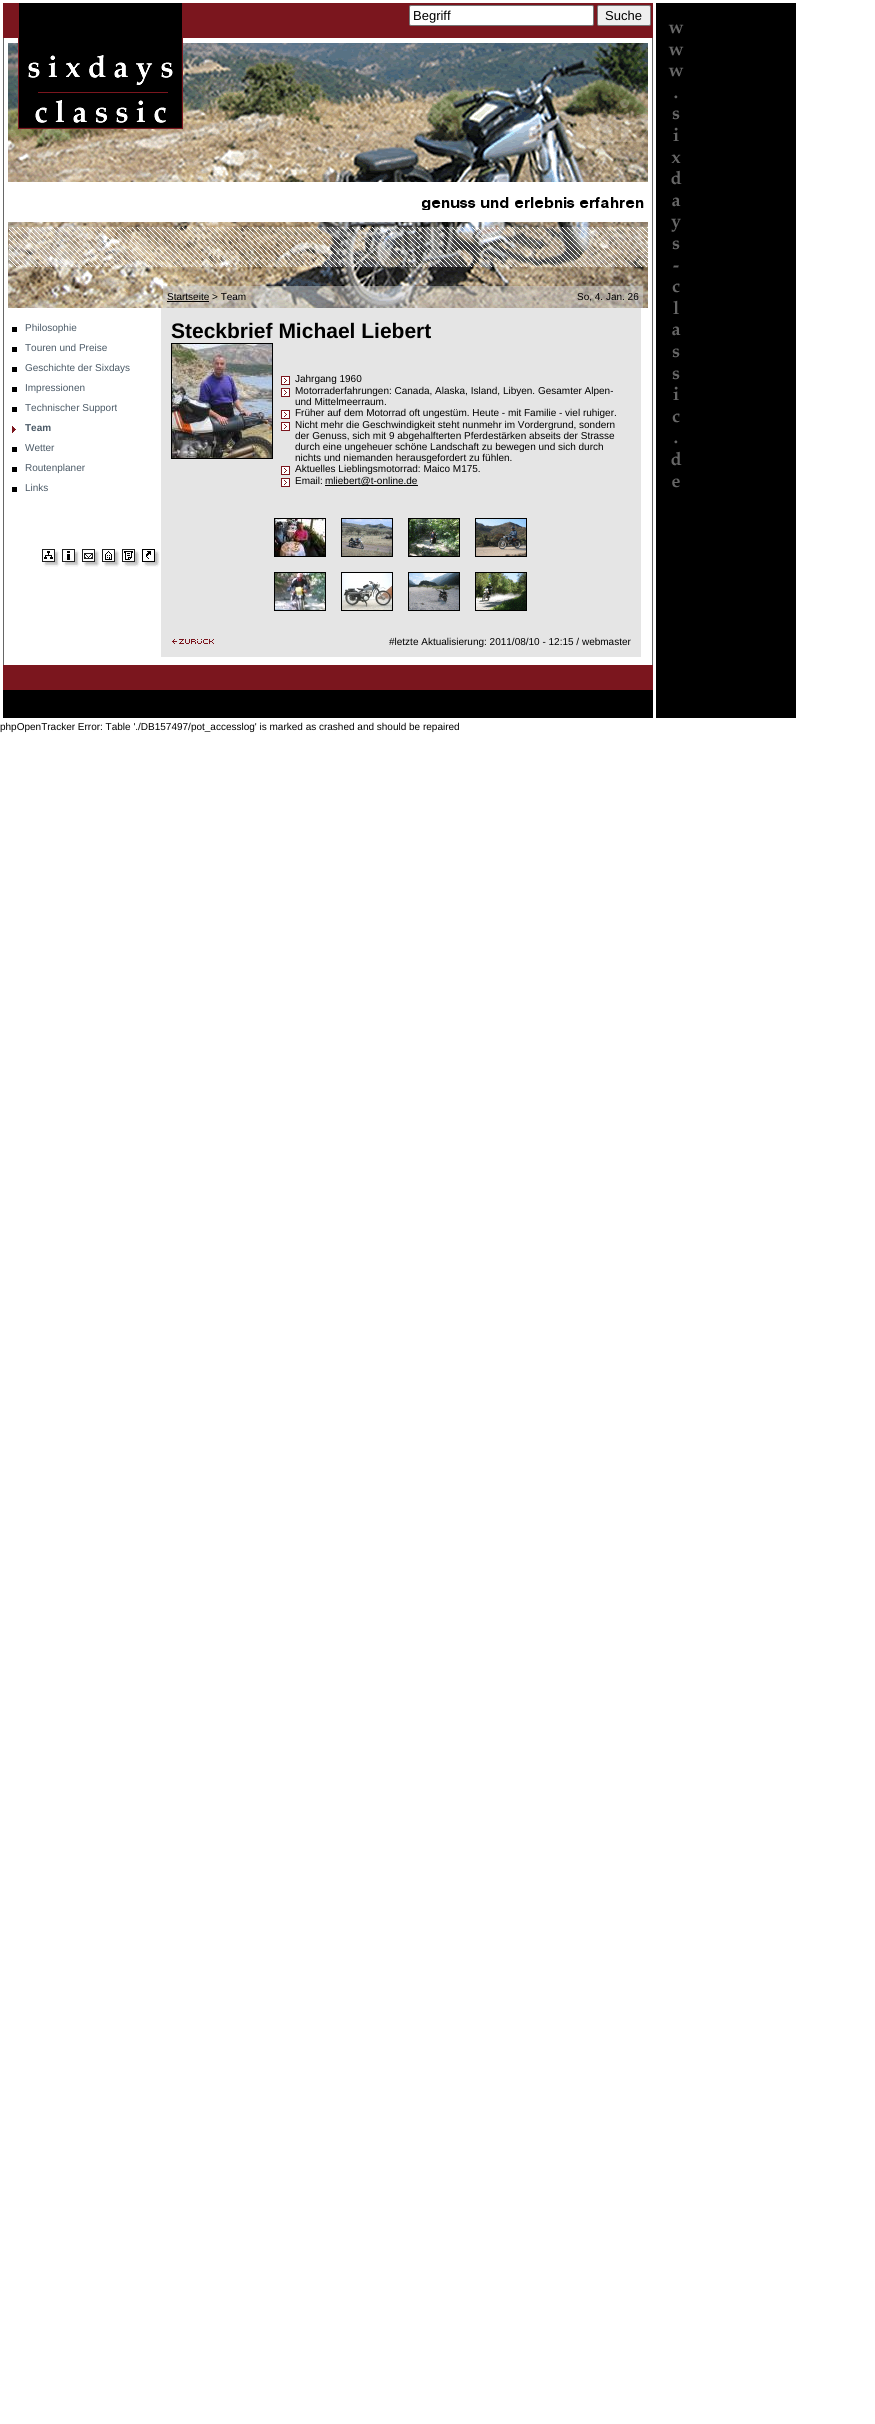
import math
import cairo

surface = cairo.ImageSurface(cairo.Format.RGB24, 875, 2424)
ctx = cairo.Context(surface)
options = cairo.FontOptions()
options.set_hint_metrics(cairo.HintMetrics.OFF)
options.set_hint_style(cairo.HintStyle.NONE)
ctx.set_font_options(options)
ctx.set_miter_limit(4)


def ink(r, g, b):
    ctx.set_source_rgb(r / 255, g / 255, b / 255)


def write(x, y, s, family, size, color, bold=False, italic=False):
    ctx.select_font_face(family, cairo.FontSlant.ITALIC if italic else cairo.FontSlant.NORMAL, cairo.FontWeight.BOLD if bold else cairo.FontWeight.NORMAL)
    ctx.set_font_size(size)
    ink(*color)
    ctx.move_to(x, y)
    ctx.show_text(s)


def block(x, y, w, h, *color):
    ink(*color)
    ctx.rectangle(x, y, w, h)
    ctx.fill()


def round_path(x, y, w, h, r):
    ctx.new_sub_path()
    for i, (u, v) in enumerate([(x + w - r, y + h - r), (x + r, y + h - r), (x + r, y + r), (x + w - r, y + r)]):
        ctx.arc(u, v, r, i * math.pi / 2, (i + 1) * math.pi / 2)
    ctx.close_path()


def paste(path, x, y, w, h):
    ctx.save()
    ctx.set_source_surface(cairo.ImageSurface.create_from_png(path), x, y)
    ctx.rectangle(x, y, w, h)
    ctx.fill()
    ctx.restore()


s1 = dict(family="Liberation Sans", size=13, color=(0, 0, 0))
s2 = dict(family="Liberation Sans", size=10, color=(0, 0, 0))
s3 = dict(family="Liberation Sans", size=10, color=(74, 89, 102))
s4 = dict(family="Liberation Sans", size=10, color=(74, 89, 102), bold=True)
s5 = dict(family="Liberation Sans", size=21, color=(0, 0, 0), bold=True)

ink(255, 255, 255)
ctx.paint()
block(3, 3, 16, 35, 123, 22, 30)
block(19, 3, 163, 35, 0, 0, 0)
block(182, 3, 471, 35, 123, 22, 30)
ink(255, 255, 255)
round_path(409.5, 5.5, 184, 20, 1.5)
ctx.fill_preserve()
ink(118, 118, 118)
ctx.set_line_width(1)
ctx.stroke()
write(413, 20, "Begriff", **s1)
ink(239, 239, 239)
round_path(597.5, 5.5, 53, 20, 1.5)
ctx.fill_preserve()
ink(118, 118, 118)
ctx.stroke()
write(605, 20, "Suche", **s1)
block(3, 38, 1, 627, 102, 102, 102)
paste("pic1.png", 8, 38, 11, 91)
paste("pic2.png", 19, 38, 163, 90)
block(19, 128, 163, 1, 122, 22, 30)
block(182, 38, 1, 91, 123, 22, 30)
paste("pic3.png", 8, 129, 175, 53)
paste("pic4.png", 183, 43, 231, 139)
paste("pic5.png", 414, 43, 234, 139)
paste("pic6.png", 422, 197, 222, 13)
paste("pic7.png", 8, 222, 640, 44)
paste("pic8.png", 8, 266, 640, 20)
paste("pic9.png", 8, 286, 155, 22)
paste("pic10.png", 163, 286, 480, 22)
write(167, 300, "Startseite > Team", **s2)
block(167, 301, 42, 1, 0, 0, 0)
write(577, 300, "So, 4. Jan. 26", **s2)
paste("pic11.png", 643, 286, 5, 22)
block(652, 38, 1, 627, 102, 102, 102)
block(12, 327, 5, 5, 0, 0, 0)
write(25, 331, "Philosophie", **s3)
block(12, 347, 5, 5, 0, 0, 0)
write(25, 351, "Touren und Preise", **s3)
block(12, 367, 5, 5, 0, 0, 0)
write(25, 371, "Geschichte der Sixdays", **s3)
block(12, 387, 5, 5, 0, 0, 0)
write(25, 391, "Impressionen", **s3)
block(12, 407, 5, 5, 0, 0, 0)
write(25, 411, "Technischer Support", **s3)
paste("pic12.png", 12, 426, 4, 7)
write(25, 431, "Team", **s4)
block(12, 447, 5, 5, 0, 0, 0)
write(25, 451, "Wetter", **s3)
block(12, 467, 5, 5, 0, 0, 0)
write(25, 471, "Routenplaner", **s3)
block(12, 487, 5, 5, 0, 0, 0)
write(25, 491, "Links", **s3)
paste("pic13.png", 42, 549, 18, 18)
paste("pic14.png", 62, 549, 18, 18)
paste("pic15.png", 82, 549, 18, 18)
paste("pic16.png", 102, 549, 18, 18)
paste("pic17.png", 122, 549, 18, 18)
paste("pic18.png", 142, 549, 18, 18)
block(161, 308, 480, 349, 229, 229, 229)
write(171, 338, "Steckbrief Michael Liebert", **s5)
ctx.rectangle(171.5, 343.5, 101, 115)
ctx.stroke()
paste("pic19.png", 172, 344, 100, 114)
paste("pic20.png", 281, 376, 9, 9)
write(295, 382, "Jahrgang 1960", **s2)
paste("pic20.png", 281, 388, 9, 9)
write(295, 394, "Motorraderfahrungen: Canada, Alaska, Island, Libyen. Gesamter Alpen-", **s2)
write(295, 405, "und Mittelmeerraum.", **s2)
paste("pic20.png", 281, 410, 9, 9)
write(295, 416, "Früher auf dem Motorrad oft ungestüm. Heute - mit Familie - viel ruhiger.", **s2)
paste("pic20.png", 281, 422, 9, 9)
write(295, 428, "Nicht mehr die Geschwindigkeit steht nunmehr im Vordergrund, sondern", **s2)
write(295, 439, "der Genuss, sich mit 9 abgehalfterten Pferdestärken abseits der Strasse", **s2)
write(295, 450, "durch eine ungeheuer schöne Landschaft zu bewegen und sich durch", **s2)
write(295, 461, "nichts und niemanden herausgefordert zu fühlen.", **s2)
paste("pic20.png", 281, 466, 9, 9)
write(295, 472, "Aktuelles Lieblingsmotorrad: Maico M175.", **s2)
paste("pic20.png", 281, 478, 9, 9)
write(295, 484, "Email:", **s2)
block(325, 485, 93, 1, 0, 0, 0)
write(325, 484, "mliebert@t-online.de", **s2)
ctx.rectangle(274.5, 518.5, 51, 38)
ctx.stroke()
paste("pic21.png", 275, 519, 50, 37)
ctx.rectangle(341.5, 518.5, 51, 38)
ctx.stroke()
paste("pic22.png", 342, 519, 50, 37)
ctx.rectangle(408.5, 518.5, 51, 38)
ctx.stroke()
paste("pic23.png", 409, 519, 50, 37)
ctx.rectangle(475.5, 518.5, 51, 38)
ctx.stroke()
paste("pic24.png", 476, 519, 50, 37)
ctx.rectangle(274.5, 572.5, 51, 38)
ctx.stroke()
paste("pic25.png", 275, 573, 50, 37)
ctx.rectangle(341.5, 572.5, 51, 38)
ctx.stroke()
paste("pic26.png", 342, 573, 50, 37)
ctx.rectangle(408.5, 572.5, 51, 38)
ctx.stroke()
paste("pic27.png", 409, 573, 50, 37)
ctx.rectangle(475.5, 572.5, 51, 38)
ctx.stroke()
paste("pic28.png", 476, 573, 50, 37)
paste("pic29.png", 172, 639, 42, 5)
write(389, 645, "#letzte Aktualisierung: 2011/08/10 - 12:15 / webmaster", **s2)
block(3, 665, 650, 25, 123, 22, 30)
block(3, 690, 650, 28, 0, 0, 0)
block(656, 3, 140, 715, 0, 0, 0)
paste("pic30.png", 668, 24, 16, 464)
write(0, 730, "phpOpenTracker Error: Table './DB157497/pot_accesslog' is marked as crashed and should be repaired", **s2)
surface.write_to_png("screenshot.png")
